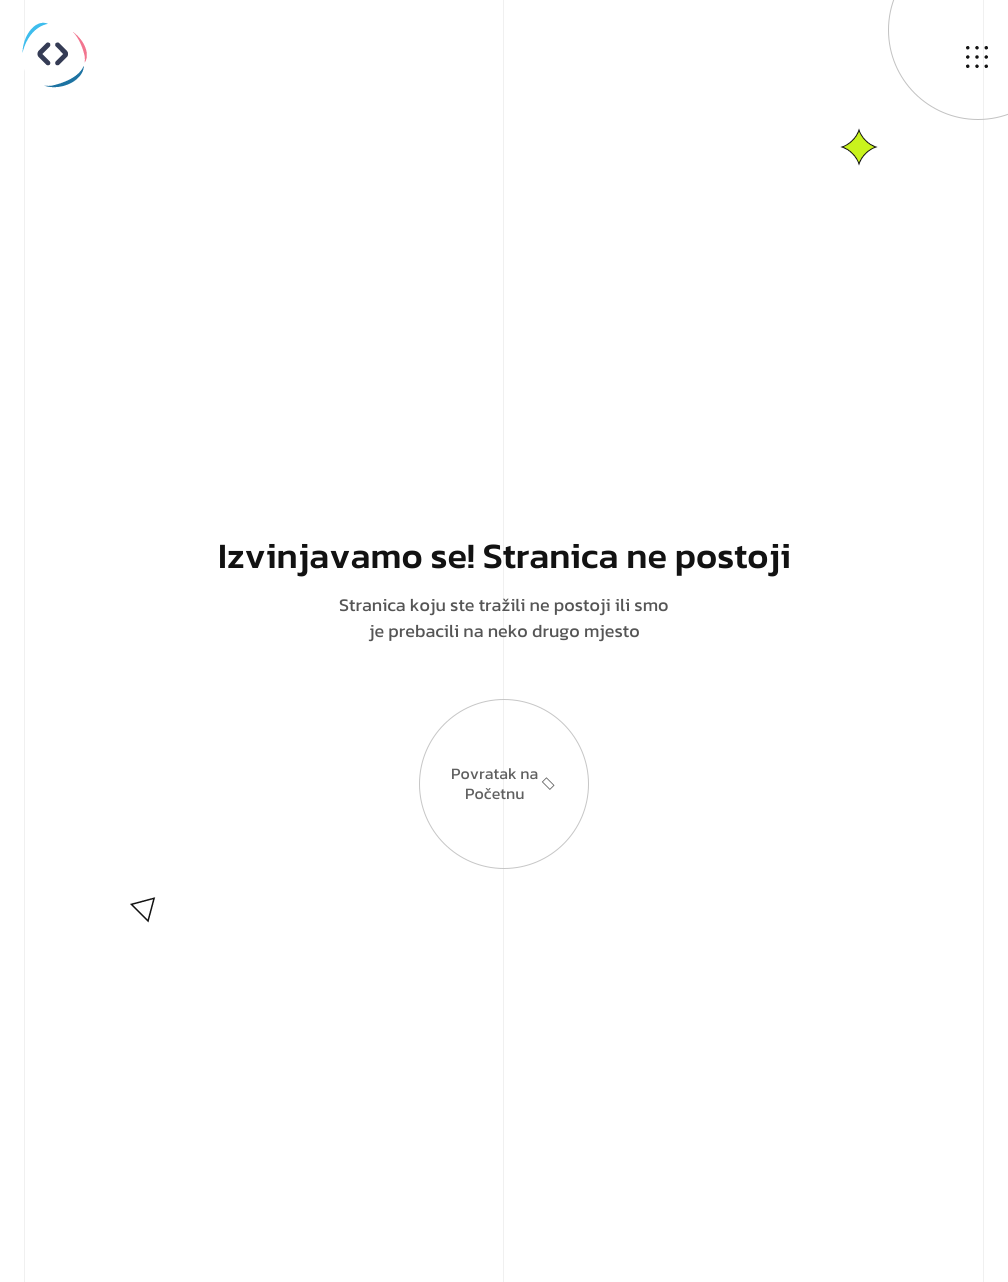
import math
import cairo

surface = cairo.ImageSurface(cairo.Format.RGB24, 1008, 1282)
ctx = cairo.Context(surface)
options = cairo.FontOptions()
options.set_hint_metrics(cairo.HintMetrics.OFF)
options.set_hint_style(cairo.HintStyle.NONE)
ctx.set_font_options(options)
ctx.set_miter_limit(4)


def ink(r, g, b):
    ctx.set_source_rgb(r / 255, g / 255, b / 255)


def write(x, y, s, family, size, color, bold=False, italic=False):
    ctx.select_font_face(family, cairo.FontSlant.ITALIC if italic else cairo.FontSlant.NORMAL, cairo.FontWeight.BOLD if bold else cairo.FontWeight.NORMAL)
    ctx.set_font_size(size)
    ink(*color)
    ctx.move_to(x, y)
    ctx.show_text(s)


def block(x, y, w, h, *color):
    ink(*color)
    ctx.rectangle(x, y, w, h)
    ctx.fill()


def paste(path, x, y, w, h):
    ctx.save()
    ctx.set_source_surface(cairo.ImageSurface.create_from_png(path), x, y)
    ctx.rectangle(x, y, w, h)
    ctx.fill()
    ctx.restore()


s1 = dict(family="Kanit Medium", size=36, color=(18, 18, 18))
s2 = dict(family="Kanit", size=18, color=(85, 85, 85))
s3 = dict(family="Kanit", size=16, color=(96, 96, 96))

ink(255, 255, 255)
ctx.paint()
block(24, 0, 1, 1282, 240, 240, 240)
paste("pic1.png", 22, 22, 65, 66)
block(983, 0, 1, 1282, 240, 240, 240)
ctx.arc(978, 30, 89.5, 0, 2 * math.pi)
ink(194, 194, 194)
ctx.set_line_width(1)
ctx.stroke()
paste("pic2.png", 966, 46, 22, 22)
block(503, 0, 1, 1282, 240, 240, 240)
paste("pic3.png", 840, 128, 38, 38)
write(218, 568, "Izvinjavamo se! Stranica ne postoji", **s1)
write(339, 611, "Stranica koju ste tražili ne postoji ili smo", **s2)
write(369, 637, "je prebacili na neko drugo mjesto", **s2)
ctx.new_path()
ctx.arc(504, 784, 84.5, 0, 2 * math.pi)
ctx.set_source_rgba(0.761, 0.761, 0.761, 0.94)
ctx.stroke()
write(451, 779, "Povratak na", **s3)
paste("pic4.png", 541, 777, 14, 13)
write(465, 799, "Početnu", **s3)
paste("pic5.png", 130, 897, 26, 26)
surface.write_to_png("screenshot.png")
